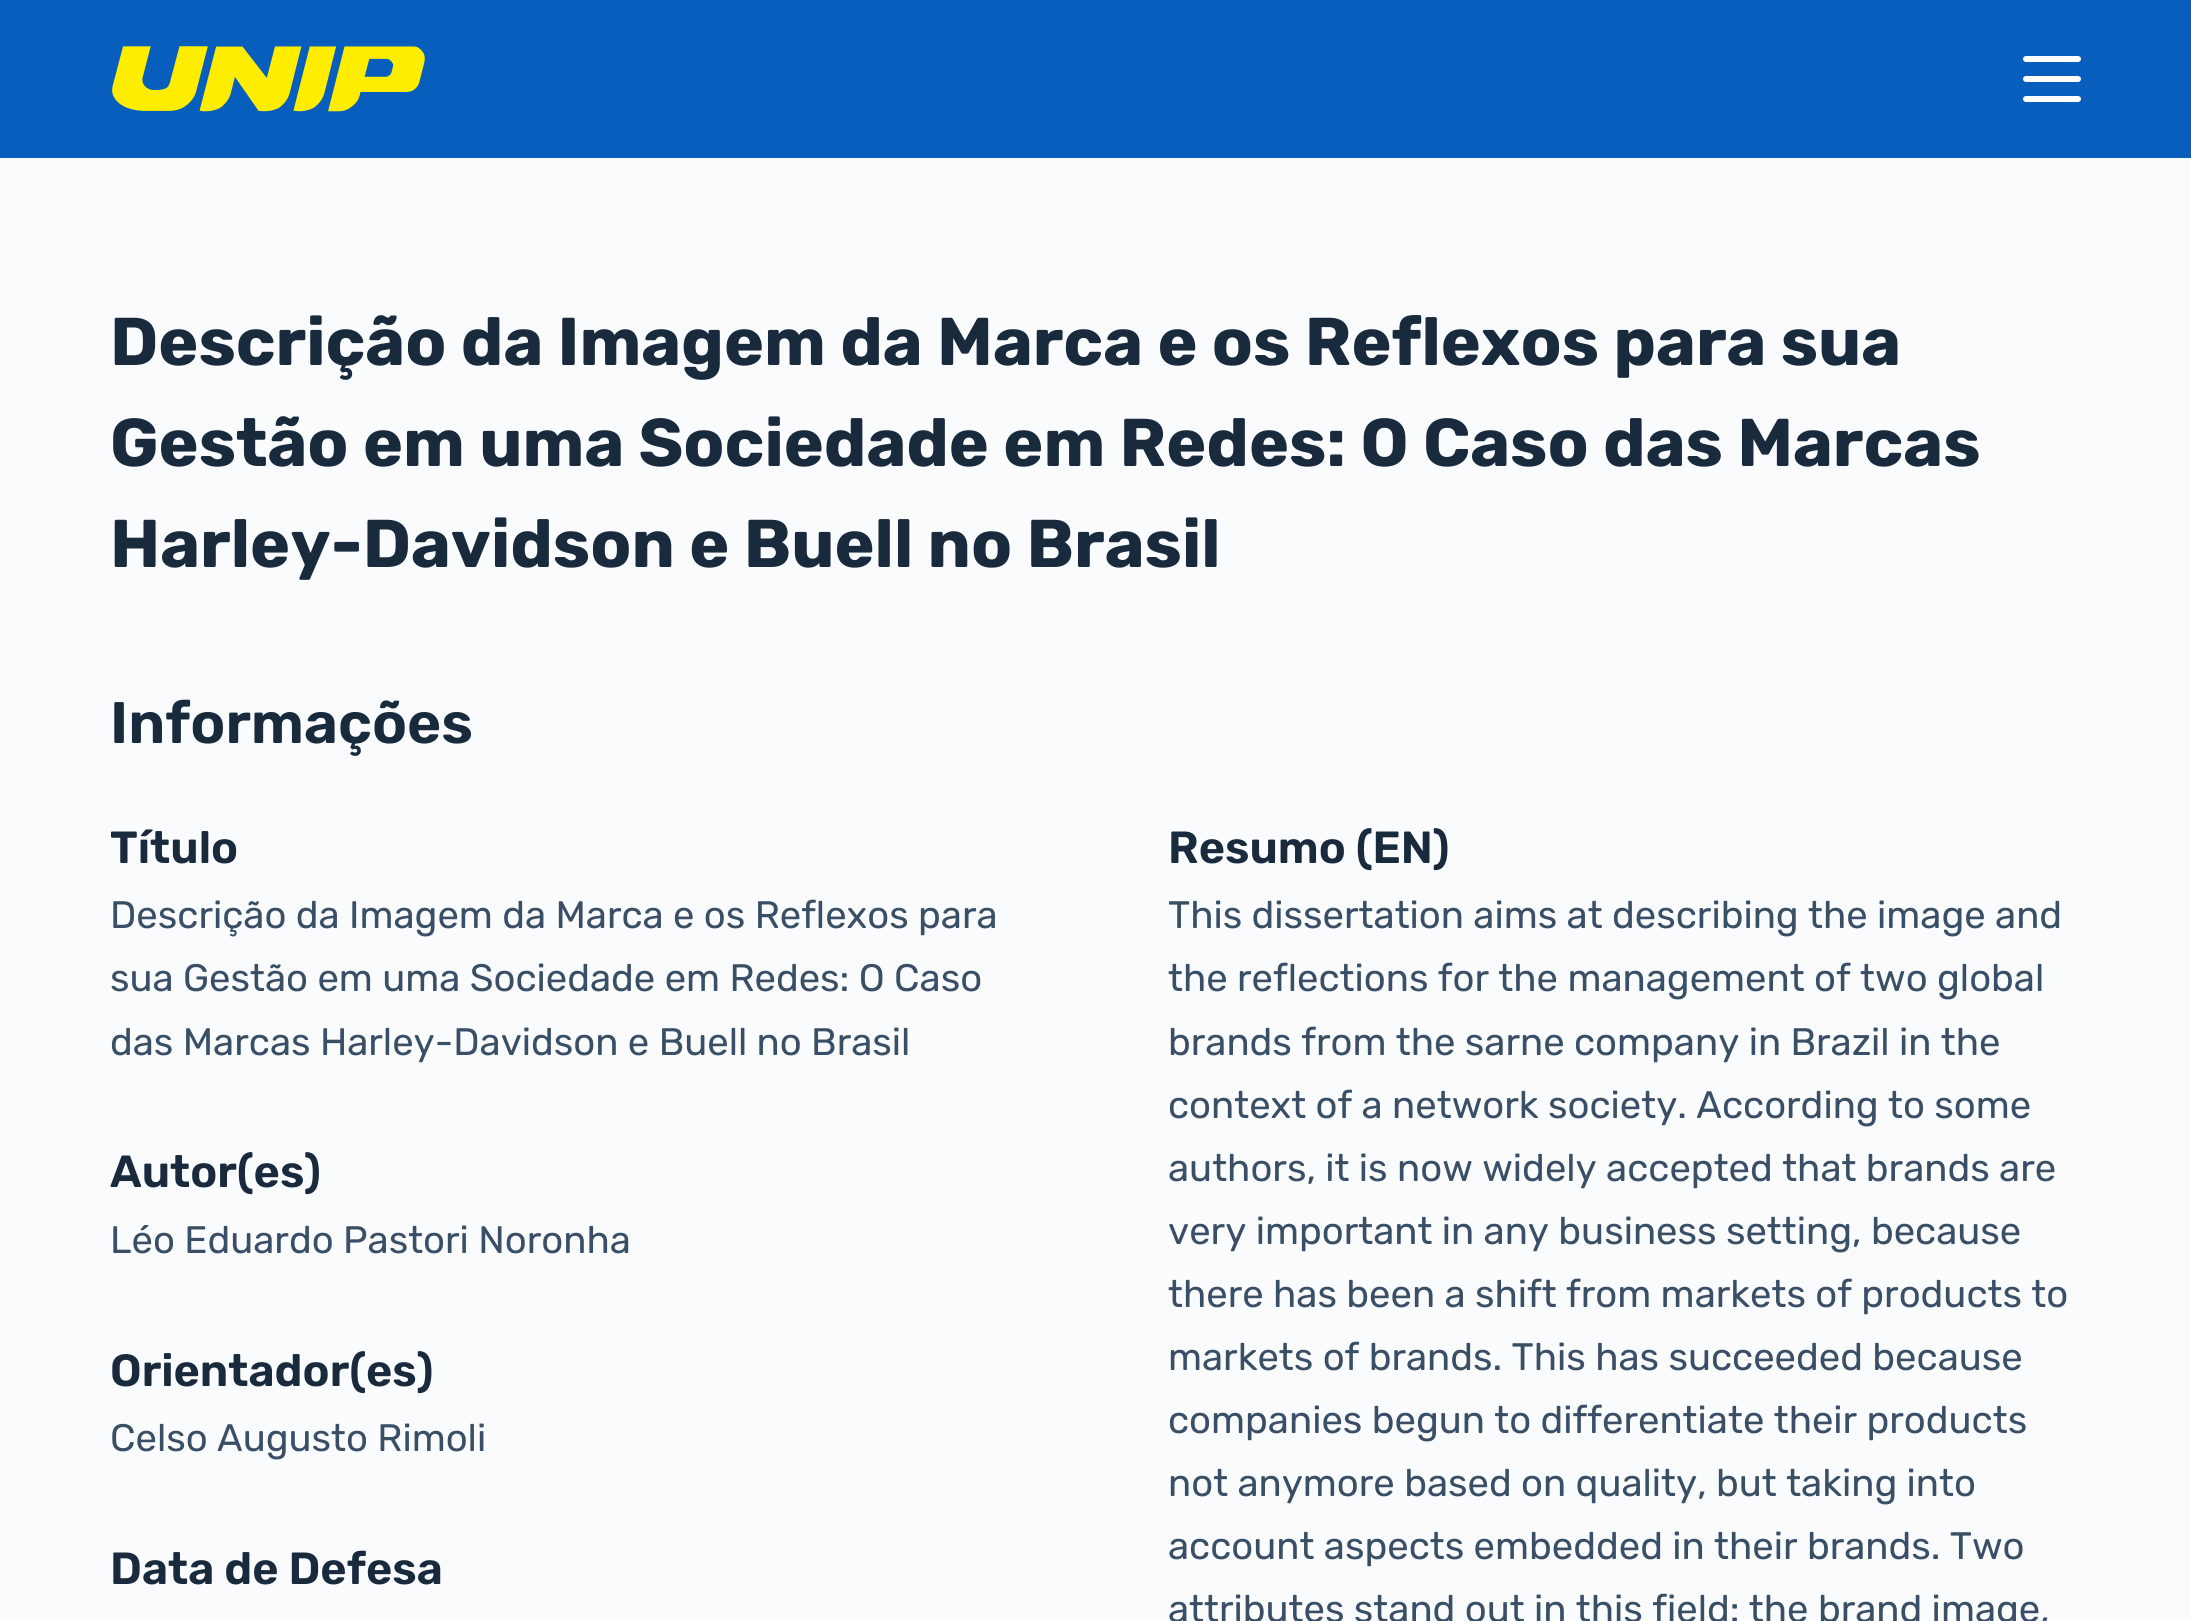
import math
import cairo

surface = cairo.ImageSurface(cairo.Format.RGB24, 2191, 1621)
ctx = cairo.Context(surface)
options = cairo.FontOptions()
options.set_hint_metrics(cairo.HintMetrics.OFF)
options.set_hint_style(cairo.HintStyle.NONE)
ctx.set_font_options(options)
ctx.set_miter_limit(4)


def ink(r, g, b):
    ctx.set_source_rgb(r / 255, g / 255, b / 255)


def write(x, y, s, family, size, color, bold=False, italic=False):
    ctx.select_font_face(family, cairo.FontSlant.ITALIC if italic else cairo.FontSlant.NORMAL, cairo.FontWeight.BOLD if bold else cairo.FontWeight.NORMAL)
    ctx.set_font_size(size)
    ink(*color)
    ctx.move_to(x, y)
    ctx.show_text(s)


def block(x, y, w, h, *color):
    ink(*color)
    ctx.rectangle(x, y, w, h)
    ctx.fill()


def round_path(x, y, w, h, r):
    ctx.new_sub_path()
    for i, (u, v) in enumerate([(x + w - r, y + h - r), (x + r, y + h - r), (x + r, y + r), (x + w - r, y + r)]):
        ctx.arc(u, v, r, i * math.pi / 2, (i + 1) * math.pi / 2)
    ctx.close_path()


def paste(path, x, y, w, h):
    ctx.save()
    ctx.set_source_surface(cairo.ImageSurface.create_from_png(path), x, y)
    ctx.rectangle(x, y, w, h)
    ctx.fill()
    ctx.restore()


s1 = dict(family="Rubik", size=67.5, color=(25, 42, 61), bold=True)
s2 = dict(family="Rubik SemiBold", size=58.5, color=(25, 42, 61))
s3 = dict(family="Rubik SemiBold", size=45, color=(25, 42, 61))
s4 = dict(family="Rubik", size=38.25, color=(58, 79, 102))

ink(250, 251, 252)
ctx.paint()
block(0, 0, 2191, 158, 7, 94, 189)
paste("pic1.png", 112, 46, 313, 66)
ink(255, 255, 255)
round_path(2023, 56, 58, 6, 3)
ctx.fill()
round_path(2023, 76, 58, 6, 3)
ctx.fill()
round_path(2023, 96, 58, 6, 3)
ctx.fill()
write(110, 365, "Descrição da Imagem da Marca e os Reflexos para sua", **s1)
write(110, 466, "Gestão em uma Sociedade em Redes: O Caso das Marcas", **s1)
write(110, 567, "Harley-Davidson e Buell no Brasil", **s1)
write(110, 743, "Informações", **s2)
write(110, 863, "Título", **s3)
write(110, 928, "Descrição da Imagem da Marca e os Reflexos para", **s4)
write(110, 991, "sua Gestão em uma Sociedade em Redes: O Caso", **s4)
write(110, 1055, "das Marcas Harley-Davidson e Buell no Brasil", **s4)
write(1168, 863, "Resumo (EN)", **s3)
write(1168, 928, "This dissertation aims at describing the image and", **s4)
write(1168, 991, "the reflections for the management of two global", **s4)
write(1168, 1055, "brands from the sarne company in Brazil in the", **s4)
write(1168, 1118, "context of a network society. According to some", **s4)
write(1168, 1181, "authors, it is now widely accepted that brands are", **s4)
write(1168, 1244, "very important in any business setting, because", **s4)
write(1168, 1307, "there has been a shift from markets of products to", **s4)
write(1168, 1370, "markets of brands. This has succeeded because", **s4)
write(1168, 1433, "companies begun to differentiate their products", **s4)
write(1168, 1496, "not anymore based on quality, but taking into", **s4)
write(1168, 1559, "account aspects embedded in their brands. Two", **s4)
write(1168, 1622, "attributes stand out in this field: the brand image,", **s4)
write(110, 1187, "Autor(es)", **s3)
write(110, 1253, "Léo Eduardo Pastori Noronha", **s4)
write(110, 1386, "Orientador(es)", **s3)
write(110, 1451, "Celso Augusto Rimoli", **s4)
write(110, 1584, "Data de Defesa", **s3)
surface.write_to_png("screenshot.png")
